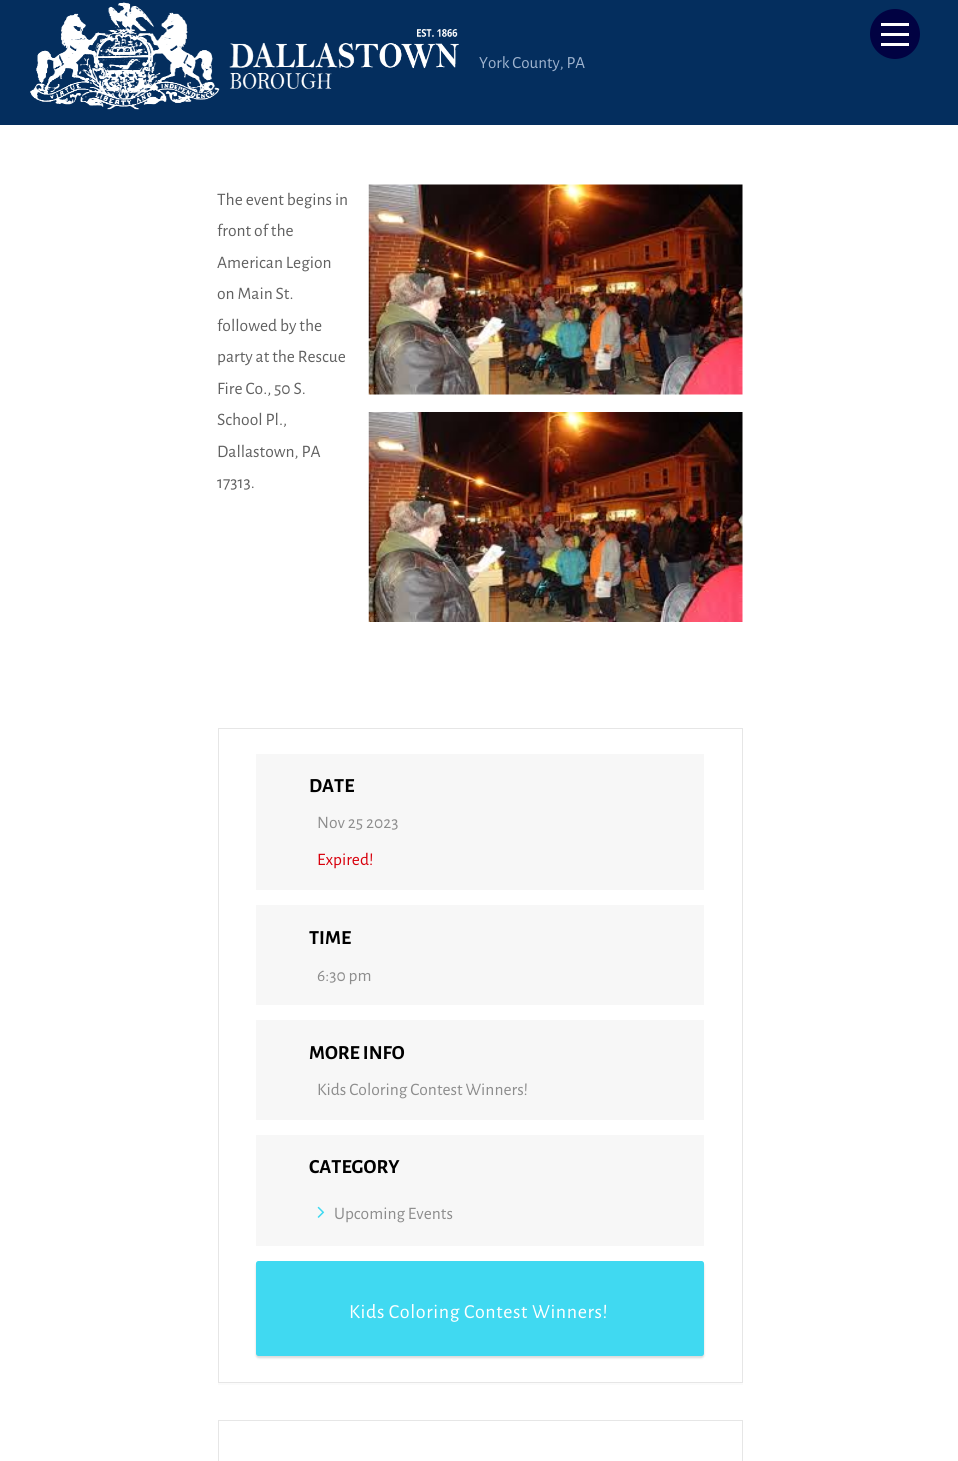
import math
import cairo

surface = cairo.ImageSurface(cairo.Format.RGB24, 958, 1461)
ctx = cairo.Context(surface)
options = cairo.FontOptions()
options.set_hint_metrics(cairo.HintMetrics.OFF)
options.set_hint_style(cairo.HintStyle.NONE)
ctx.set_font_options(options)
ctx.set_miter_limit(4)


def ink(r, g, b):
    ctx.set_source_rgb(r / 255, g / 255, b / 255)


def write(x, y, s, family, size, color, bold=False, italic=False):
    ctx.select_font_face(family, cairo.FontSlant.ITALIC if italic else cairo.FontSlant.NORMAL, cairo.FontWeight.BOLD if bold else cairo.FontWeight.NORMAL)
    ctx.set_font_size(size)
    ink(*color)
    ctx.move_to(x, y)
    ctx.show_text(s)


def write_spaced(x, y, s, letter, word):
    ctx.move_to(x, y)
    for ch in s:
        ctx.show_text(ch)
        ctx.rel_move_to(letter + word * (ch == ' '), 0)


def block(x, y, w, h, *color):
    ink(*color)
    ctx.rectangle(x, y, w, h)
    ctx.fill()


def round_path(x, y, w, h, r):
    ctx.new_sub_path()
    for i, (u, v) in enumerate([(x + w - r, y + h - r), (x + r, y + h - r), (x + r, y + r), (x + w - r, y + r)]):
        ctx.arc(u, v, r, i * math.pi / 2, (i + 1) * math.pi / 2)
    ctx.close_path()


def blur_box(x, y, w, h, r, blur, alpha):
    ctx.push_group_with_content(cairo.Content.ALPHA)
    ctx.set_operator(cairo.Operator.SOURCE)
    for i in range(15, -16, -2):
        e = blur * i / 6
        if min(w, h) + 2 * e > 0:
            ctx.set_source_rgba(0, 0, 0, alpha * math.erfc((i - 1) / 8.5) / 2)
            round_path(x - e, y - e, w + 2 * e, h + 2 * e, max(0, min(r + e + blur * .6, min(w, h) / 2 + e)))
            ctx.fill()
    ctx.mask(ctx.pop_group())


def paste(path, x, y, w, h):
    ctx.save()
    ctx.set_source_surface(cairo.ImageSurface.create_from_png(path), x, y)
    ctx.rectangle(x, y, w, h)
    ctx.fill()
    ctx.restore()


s1 = dict(family="Alegreya Sans", size=17, color=(160, 180, 207))
s2 = dict(family="Alegreya Sans", size=17.5, color=(97, 97, 97))
s3 = dict(family="Alegreya Sans", size=20, color=(0, 0, 0), bold=True)
s4 = dict(family="Alegreya Sans", size=17.5, color=(141, 141, 141))
s5 = dict(family="Alegreya Sans", size=17.5, color=(216, 0, 12))

ink(255, 255, 255)
ctx.paint()
block(0, 0, 958, 125, 4, 46, 94)
ink(1, 2, 66)
ctx.arc(895, 34, 25, 0, 2 * math.pi)
ctx.fill()
block(881, 43, 28, 3, 255, 255, 255)
block(881, 23, 28, 3, 255, 255, 255)
block(881, 33, 28, 3, 255, 255, 255)
paste("pic1.png", 30, 2, 429, 108)
write(479, 68, "York County, PA", **s1)
write(217, 205, "The event begins in", **s2)
write(217, 236, "front of the", **s2)
write(217, 268, "American Legion", **s2)
write(217, 299, "on Main St.", **s2)
write(217, 331, "followed by the", **s2)
write(217, 362, "party at the Rescue", **s2)
write(217, 394, "Fire Co., 50 S.", **s2)
write(217, 425, "School Pl.,", **s2)
write(217, 457, "Dallastown, PA", **s2)
write(217, 488, "17313.", **s2)
paste("pic2.png", 368, 184, 375, 211)
paste("pic3.png", 368, 412, 375, 210)
ink(251, 251, 251)
ctx.new_path()
ctx.move_to(218, 1382)
ctx.line_to(218, 1385)
ctx.line_to(743, 1385)
ctx.line_to(743, 730)
ctx.line_to(742, 730)
ctx.line_to(742, 1382)
ctx.close_path()
ctx.fill()
ctx.rectangle(218.5, 728.5, 524, 654)
ink(230, 230, 230)
ctx.set_line_width(1)
ctx.stroke()
block(256, 754, 448, 136, 247, 247, 247)
write(309, 792, "DATE", **s3)
write(317, 828, "Nov 25 2023", **s4)
write(317, 865, "Expired!", **s5)
block(256, 905, 448, 100, 247, 247, 247)
write(309, 944, "TIME", **s3)
write(317, 981, "6:30 pm", **s4)
block(256, 1020, 448, 100, 247, 247, 247)
write(309, 1059, "MORE INFO", **s3)
write(317, 1095, "Kids Coloring Contest Winners!", **s4)
block(256, 1135, 448, 111, 247, 247, 247)
write(309, 1173, "CATEGORY", **s3)
paste("pic4.png", 317, 1206, 8, 12)
write(334, 1219, "Upcoming Events", **s4)
ink(0, 0, 0)
blur_box(256, 1263, 448, 95, 2.5, 1, 0.15)
ink(64, 217, 241)
round_path(256, 1261, 448, 95, 2.5)
ctx.fill()
ctx.set_font_size(20)
ink(255, 255, 255)
write_spaced(349, 1318, "Kids Coloring Contest Winners!", 0.6, 0)
ctx.rectangle(218.5, 1420.5, 524, 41)
ink(230, 230, 230)
ctx.stroke()
surface.write_to_png("screenshot.png")
